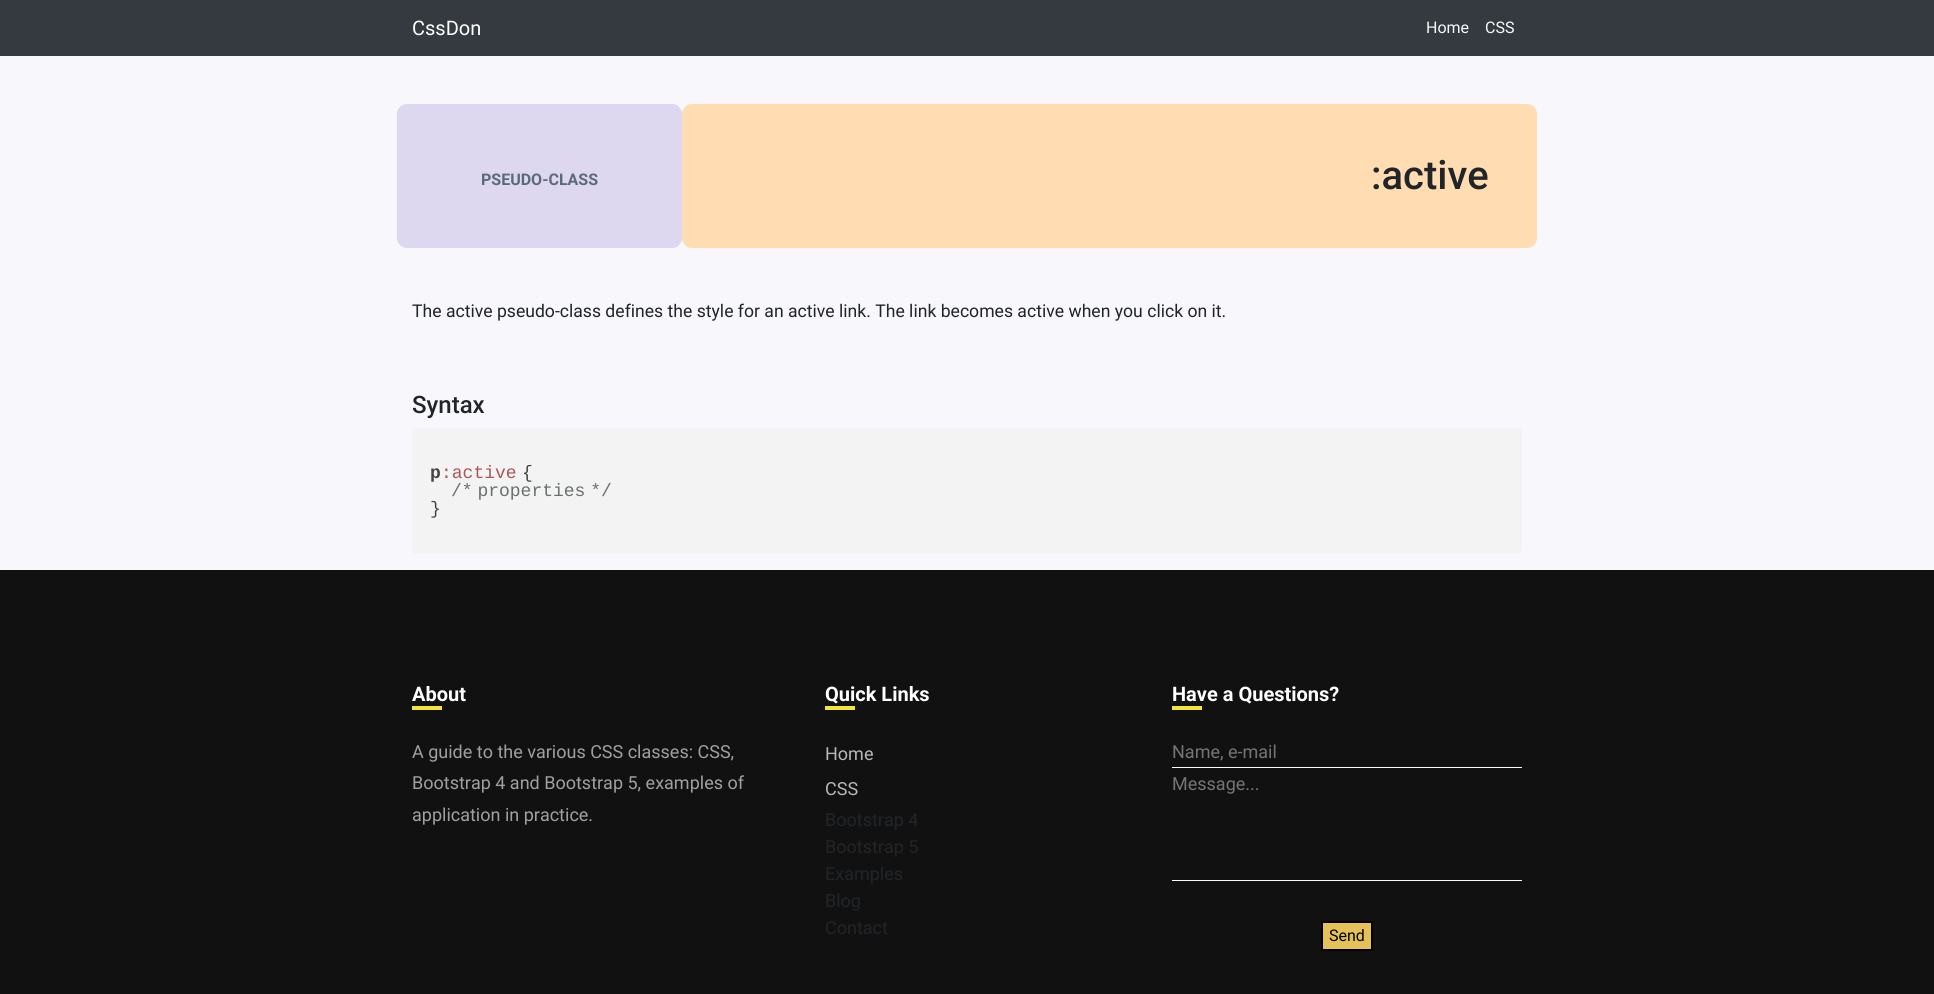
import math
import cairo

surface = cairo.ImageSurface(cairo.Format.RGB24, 1934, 994)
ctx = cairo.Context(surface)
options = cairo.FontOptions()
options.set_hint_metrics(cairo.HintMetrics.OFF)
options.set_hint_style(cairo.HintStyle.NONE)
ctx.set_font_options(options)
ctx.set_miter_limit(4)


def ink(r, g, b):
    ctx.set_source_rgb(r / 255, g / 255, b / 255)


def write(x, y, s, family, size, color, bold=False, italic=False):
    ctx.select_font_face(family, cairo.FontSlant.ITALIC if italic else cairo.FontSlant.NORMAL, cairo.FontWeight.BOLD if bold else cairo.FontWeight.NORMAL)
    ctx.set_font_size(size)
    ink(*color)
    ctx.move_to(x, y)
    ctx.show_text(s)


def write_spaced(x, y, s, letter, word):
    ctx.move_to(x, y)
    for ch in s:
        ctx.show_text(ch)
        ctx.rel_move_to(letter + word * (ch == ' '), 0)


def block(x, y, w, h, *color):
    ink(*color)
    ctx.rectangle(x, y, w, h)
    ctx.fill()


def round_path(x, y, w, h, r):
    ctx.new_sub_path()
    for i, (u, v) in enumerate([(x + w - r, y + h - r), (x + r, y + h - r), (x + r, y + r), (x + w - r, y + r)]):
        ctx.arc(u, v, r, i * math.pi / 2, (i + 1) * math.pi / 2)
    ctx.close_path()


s1 = dict(family="Roboto", size=20, color=(255, 255, 255))
s2 = dict(family="Roboto", size=16, color=(248, 249, 250))
s3 = dict(family="Roboto", size=16, color=(91, 106, 120), bold=True)
s4 = dict(family="Roboto Medium", size=40, color=(33, 37, 41))
s5 = dict(family="Roboto", size=17.6, color=(33, 37, 41))
s6 = dict(family="Roboto Medium", size=24, color=(33, 37, 41))
s7 = dict(family="Liberation Mono", size=18, color=(68, 68, 68), bold=True)
s8 = dict(family="Liberation Mono", size=18, color=(171, 86, 86))
s9 = dict(family="Liberation Mono", size=18, color=(68, 68, 68))
s10 = dict(family="Roboto", size=20, color=(255, 255, 255), bold=True)
s11 = dict(family="Roboto", size=18, color=(160, 160, 160))
s12 = dict(family="Roboto", size=18, color=(184, 184, 184))
s13 = dict(family="Roboto", size=18, color=(33, 37, 41))
s14 = dict(family="Roboto", size=18, color=(117, 117, 117))
s15 = dict(family="Roboto", size=16, color=(0, 0, 0))

ink(247, 247, 252)
ctx.paint()
block(0, 0, 1934, 56, 52, 58, 64)
write(412, 35, "CssDon", **s1)
write(1426, 33, "Home", **s2)
write(1485, 33, "CSS", **s2)
ink(221, 215, 239)
round_path(397, 104, 285, 144, 10)
ctx.fill()
write(481, 185, "PSEUDO-CLASS", **s3)
ink(255, 220, 177)
round_path(682, 104, 855, 144, 10)
ctx.fill()
write(1371, 189, ":active", **s4)
write(412, 317, "The active pseudo-class defines the style for an active link. The link becomes active when you click on it.", **s5)
write(412, 413, "Syntax", **s6)
ink(243, 243, 243)
round_path(412, 428, 1110, 126, 5)
ctx.fill()
write(430, 478, "p", **s7)
write(441, 478, ":active", **s8)
write(522, 478, "{", **s9)
ink(105, 112, 112)
write_spaced(451, 496, "/* properties */", 0, -6)
write(430, 514, "}", **s9)
block(0, 570, 1934, 424, 17, 17, 17)
write(412, 701, "About", **s10)
block(412, 706, 30, 4, 243, 229, 61)
write(412, 758, "A guide to the various CSS classes: CSS,", **s11)
write(412, 789, "Bootstrap 4 and Bootstrap 5, examples of", **s11)
write(412, 821, "application in practice.", **s11)
write(825, 701, "Quick Links", **s10)
block(825, 706, 30, 4, 243, 229, 61)
write(825, 760, "Home", **s12)
write(825, 795, "CSS", **s12)
write(825, 826, "Bootstrap 4", **s13)
write(825, 853, "Bootstrap 5", **s13)
write(825, 880, "Examples", **s13)
write(825, 907, "Blog", **s13)
write(825, 934, "Contact", **s13)
write(1172, 701, "Have a Questions?", **s10)
block(1172, 706, 30, 4, 243, 229, 61)
block(1172, 767, 350, 1, 250, 252, 255)
write(1172, 758, "Name, e-mail", **s14)
block(1172, 880, 350, 1, 250, 252, 255)
write(1172, 790, "Message...", **s14)
ink(229, 194, 87)
ctx.rectangle(1322, 922, 50, 28)
ctx.fill_preserve()
ink(0, 0, 0)
ctx.stroke()
write(1329, 941, "Send", **s15)
surface.write_to_png("screenshot.png")
